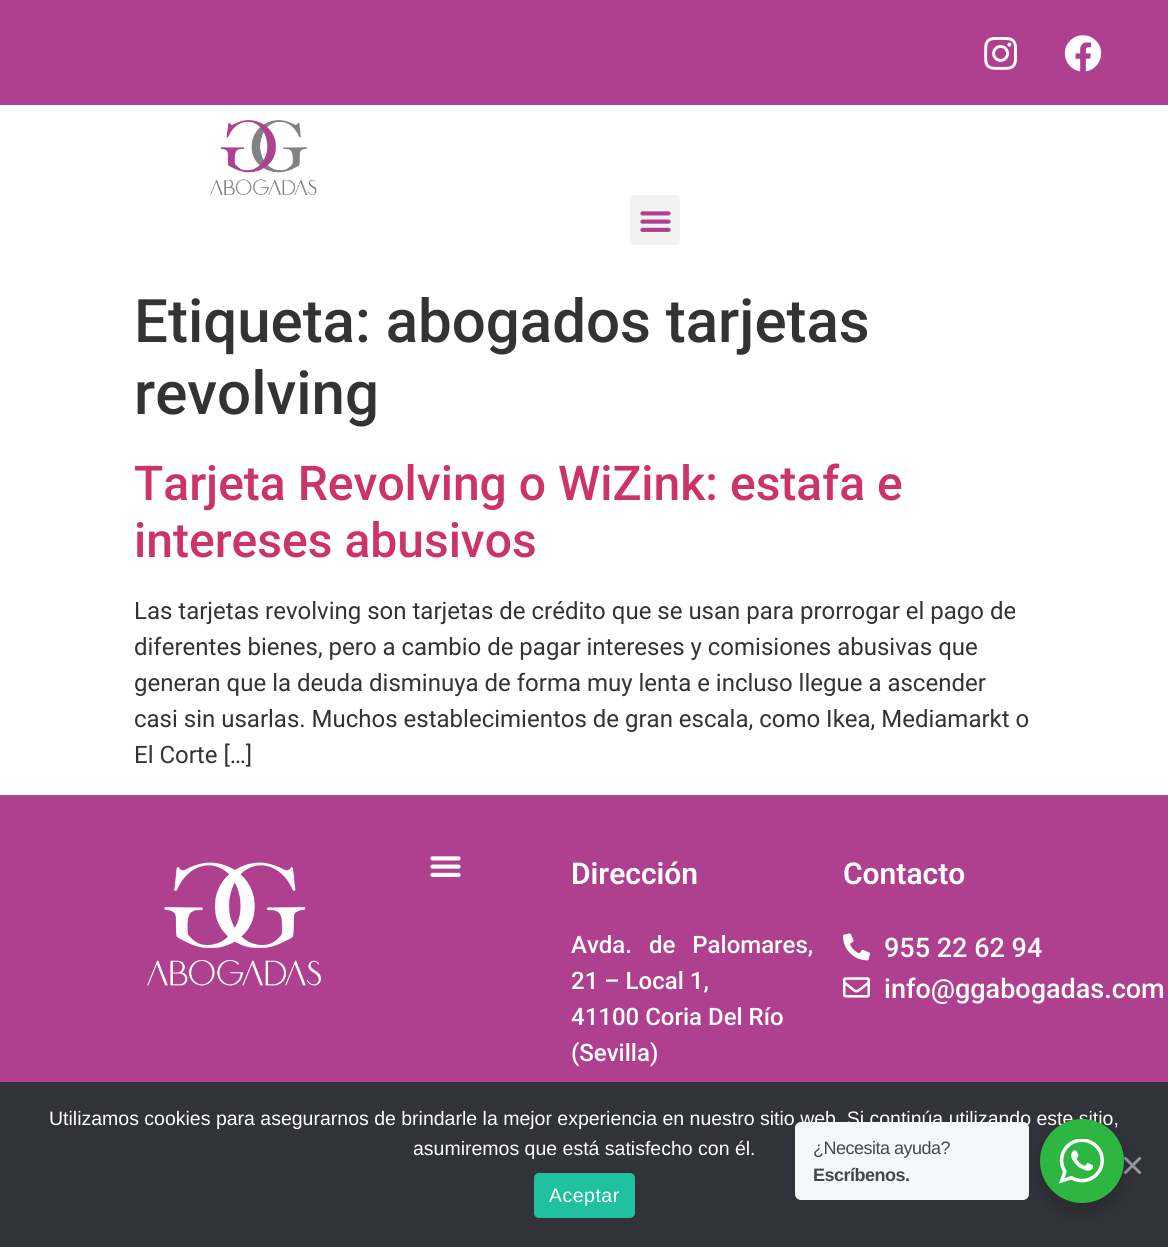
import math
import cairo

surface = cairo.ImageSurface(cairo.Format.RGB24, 1168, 1247)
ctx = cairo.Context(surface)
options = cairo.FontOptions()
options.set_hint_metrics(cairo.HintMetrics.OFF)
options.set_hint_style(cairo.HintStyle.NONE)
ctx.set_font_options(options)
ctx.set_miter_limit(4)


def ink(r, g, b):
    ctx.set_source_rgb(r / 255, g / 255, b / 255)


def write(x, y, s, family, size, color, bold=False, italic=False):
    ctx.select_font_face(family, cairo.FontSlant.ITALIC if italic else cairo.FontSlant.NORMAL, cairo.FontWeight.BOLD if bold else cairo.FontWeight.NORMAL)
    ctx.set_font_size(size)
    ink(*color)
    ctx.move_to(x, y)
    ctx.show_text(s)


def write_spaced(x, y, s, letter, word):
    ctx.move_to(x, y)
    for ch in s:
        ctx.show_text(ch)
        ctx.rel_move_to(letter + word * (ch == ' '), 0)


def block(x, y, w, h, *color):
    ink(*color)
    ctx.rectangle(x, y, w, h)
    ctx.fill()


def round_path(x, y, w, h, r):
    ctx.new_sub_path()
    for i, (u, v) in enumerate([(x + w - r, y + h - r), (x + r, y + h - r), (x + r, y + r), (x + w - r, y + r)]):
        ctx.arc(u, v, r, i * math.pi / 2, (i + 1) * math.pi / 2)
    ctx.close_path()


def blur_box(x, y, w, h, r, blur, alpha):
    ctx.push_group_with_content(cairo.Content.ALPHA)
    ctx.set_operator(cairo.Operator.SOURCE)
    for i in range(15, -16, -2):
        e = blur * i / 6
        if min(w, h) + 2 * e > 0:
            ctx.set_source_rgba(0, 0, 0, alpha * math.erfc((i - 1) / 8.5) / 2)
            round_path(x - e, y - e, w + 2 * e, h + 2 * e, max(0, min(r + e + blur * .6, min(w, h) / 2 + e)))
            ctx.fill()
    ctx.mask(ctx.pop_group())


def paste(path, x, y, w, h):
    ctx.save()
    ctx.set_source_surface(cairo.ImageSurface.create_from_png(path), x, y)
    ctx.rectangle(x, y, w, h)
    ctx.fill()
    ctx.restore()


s1 = dict(family="Roboto Medium", size=60, color=(51, 51, 51))
s2 = dict(family="Roboto Medium", size=48, color=(204, 51, 102))
s3 = dict(family="Roboto", size=24, color=(51, 51, 51))
s4 = dict(family="Roboto SemiBold", size=30, color=(255, 255, 255))
s5 = dict(family="Roboto Medium", size=24, color=(255, 255, 255))
s6 = dict(family="Roboto Medium", size=27, color=(255, 255, 255))
s7 = dict(family="Liberation Sans", size=19.5, color=(255, 255, 255))

ink(255, 255, 255)
ctx.paint()
block(0, 0, 1168, 105, 175, 64, 144)
paste("pic1.png", 984, 37, 33, 33)
paste("pic2.png", 1064, 35, 38, 37)
paste("pic3.png", 210, 120, 107, 75)
ink(242, 242, 242)
round_path(630, 195, 50, 50, 5)
ctx.fill()
paste("pic4.png", 640, 211, 31, 21)
write(134, 342, "Etiqueta: abogados tarjetas", **s1)
write(134, 414, "revolving", **s1)
write(134, 500, "Tarjeta Revolving o WiZink: estafa e", **s2)
write(134, 557, "intereses abusivos", **s2)
write(134, 619, "Las tarjetas revolving son tarjetas de crédito que se usan para prorrogar el pago de", **s3)
write(134, 655, "diferentes bienes, pero a cambio de pagar intereses y comisiones abusivas que", **s3)
write(134, 691, "generan que la deuda disminuya de forma muy lenta e incluso llegue a ascender", **s3)
write(134, 727, "casi sin usarlas. Muchos establecimientos de gran escala, como Ikea, Mediamarkt o", **s3)
write(134, 763, "El Corte […]", **s3)
block(0, 795, 1168, 287, 175, 64, 144)
paste("pic5.png", 147, 862, 174, 124)
paste("pic6.png", 430, 856, 31, 21)
write(571, 884, "Dirección", **s4)
ctx.select_font_face("Roboto Medium")
ctx.set_font_size(24)
write_spaced(571, 953, "Avda. de Palomares,", 0, 11)
write(571, 989, "21 – Local 1,", **s5)
write(571, 1025, "41100 Coria Del Río", **s5)
write(571, 1061, "(Sevilla)", **s5)
write(843, 884, "Contacto", **s4)
paste("pic7.png", 843, 933, 27, 28)
write(884, 957, "955 22 62 94", **s6)
paste("pic8.png", 843, 977, 27, 21)
write(884, 998, "info@ggabogadas.com", **s6)
block(0, 1082, 1168, 165, 50, 50, 58)
write(49, 1125, "Utilizamos cookies para asegurarnos de brindarle la mejor experiencia en nuestro sitio web. Si continúa utilizando este sitio,", **s7)
write(413, 1155, "asumiremos que está satisfecho con él.", **s7)
ink(153, 153, 157)
ctx.new_path()
ctx.move_to(1139.5, 1156.5)
ctx.line_to(1141.5, 1158.5)
ctx.line_to(1125.5, 1174.5)
ctx.line_to(1123.5, 1172.5)
ctx.close_path()
ctx.fill()
ctx.new_path()
ctx.move_to(1123.5, 1158.5)
ctx.line_to(1125.5, 1156.5)
ctx.line_to(1141.5, 1172.5)
ctx.line_to(1139.5, 1174.5)
ctx.close_path()
ctx.fill()
ink(32, 193, 158)
round_path(534, 1173, 101, 45, 5)
ctx.fill()
ink(255, 255, 255)
write_spaced(549, 1202, "Aceptar", 0.5, 0)
ink(0, 0, 0)
blur_box(1037, 1125, 90, 90, 45, 6, 0.14)
ink(245, 247, 249)
round_path(795, 1122, 234, 78, 6)
ctx.fill()
ctx.set_font_size(18)
ink(67, 71, 78)
write_spaced(813, 1154, "¿Necesita ayuda?", -0.5, 0)
ctx.select_font_face("Liberation Sans", cairo.FontSlant.NORMAL, cairo.FontWeight.BOLD)
write_spaced(813, 1181, "Escríbenos.", -0.5, 0)
ink(45, 183, 66)
ctx.new_path()
ctx.arc(1082, 1161, 42, 0, 2 * math.pi)
ctx.fill()
paste("pic9.png", 1059, 1139, 45, 45)
surface.write_to_png("screenshot.png")
